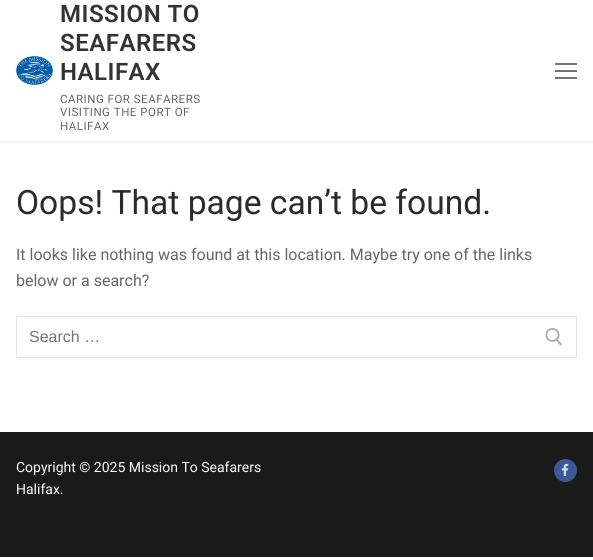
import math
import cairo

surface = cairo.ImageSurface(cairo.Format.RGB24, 593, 560)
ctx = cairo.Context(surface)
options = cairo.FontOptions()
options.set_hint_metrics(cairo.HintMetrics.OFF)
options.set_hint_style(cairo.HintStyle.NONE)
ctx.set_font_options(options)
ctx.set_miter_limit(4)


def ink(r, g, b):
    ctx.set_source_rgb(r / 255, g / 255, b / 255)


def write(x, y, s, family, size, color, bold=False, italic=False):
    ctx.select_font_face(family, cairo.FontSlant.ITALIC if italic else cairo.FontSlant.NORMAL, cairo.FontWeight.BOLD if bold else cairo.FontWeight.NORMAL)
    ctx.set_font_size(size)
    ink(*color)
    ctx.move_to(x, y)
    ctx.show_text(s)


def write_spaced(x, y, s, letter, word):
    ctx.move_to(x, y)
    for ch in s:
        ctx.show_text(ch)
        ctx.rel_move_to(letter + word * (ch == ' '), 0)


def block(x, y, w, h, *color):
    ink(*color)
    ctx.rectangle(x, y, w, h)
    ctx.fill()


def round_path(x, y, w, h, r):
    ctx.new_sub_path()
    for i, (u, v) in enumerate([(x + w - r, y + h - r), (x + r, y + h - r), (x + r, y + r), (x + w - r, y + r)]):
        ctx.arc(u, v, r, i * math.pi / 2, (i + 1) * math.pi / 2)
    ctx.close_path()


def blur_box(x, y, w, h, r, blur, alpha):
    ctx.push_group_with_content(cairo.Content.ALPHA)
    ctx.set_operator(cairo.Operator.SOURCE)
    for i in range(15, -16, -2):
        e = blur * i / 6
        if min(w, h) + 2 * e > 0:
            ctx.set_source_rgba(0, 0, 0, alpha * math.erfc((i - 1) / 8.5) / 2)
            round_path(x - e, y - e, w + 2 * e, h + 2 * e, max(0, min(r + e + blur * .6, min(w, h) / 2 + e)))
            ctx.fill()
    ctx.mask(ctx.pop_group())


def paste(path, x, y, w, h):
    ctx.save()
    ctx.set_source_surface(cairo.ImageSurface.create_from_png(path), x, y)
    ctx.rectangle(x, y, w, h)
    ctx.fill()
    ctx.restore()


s1 = dict(family="Roboto", size=33.6, color=(43, 43, 43))
s2 = dict(family="Roboto", size=16, color=(102, 102, 102))
s3 = dict(family="Liberation Sans", size=16, color=(117, 117, 117))
s4 = dict(family="Roboto", size=14, color=(253, 253, 253))

ink(255, 255, 255)
ctx.paint()
ctx.save()
ctx.rectangle(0, 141, 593, 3)
ctx.clip()
ink(225, 229, 234)
blur_box(0, 1, 593, 141, 0, 1, 1)
ctx.restore()
paste("pic1.png", 16, 56, 37, 29)
ctx.select_font_face("Roboto SemiBold")
ctx.set_font_size(24)
ink(51, 51, 51)
write_spaced(60, 22, "MISSION TO", 0.5, 0)
write_spaced(60, 51, "SEAFARERS", 0.5, 0)
write_spaced(60, 80, "HALIFAX", 0.5, 0)
ctx.select_font_face("Roboto")
ctx.set_font_size(11.5)
ink(102, 102, 102)
write_spaced(60, 103, "CARING FOR SEAFARERS", 0.5, 0)
write_spaced(60, 116, "VISITING THE PORT OF", 0.5, 0)
write_spaced(60, 130, "HALIFAX", 0.5, 0)
block(555, 70, 22, 2, 115, 115, 115)
block(555, 63, 22, 2, 115, 115, 115)
block(555, 77, 22, 2, 115, 115, 115)
write(16, 214, "Oops! That page can’t be found.", **s1)
write(16, 260, "It looks like nothing was found at this location. Maybe try one of the links", **s2)
write(16, 286, "below or a search?", **s2)
round_path(16.5, 316.5, 560, 41, 0.5)
ink(229, 229, 229)
ctx.set_line_width(1)
ctx.stroke()
write(29, 342, "Search …", **s3)
paste("pic2.png", 545, 328, 17, 18)
block(0, 432, 593, 125, 26, 26, 26)
write(16, 472, "Copyright © 2025 Mission To Seafarers", **s4)
write(16, 494, "Halifax.", **s4)
ink(59, 89, 152)
ctx.new_path()
ctx.arc(565.5, 470.5, 11.5, 0, 2 * math.pi)
ctx.fill()
paste("pic3.png", 561, 463, 8, 13)
surface.write_to_png("screenshot.png")
